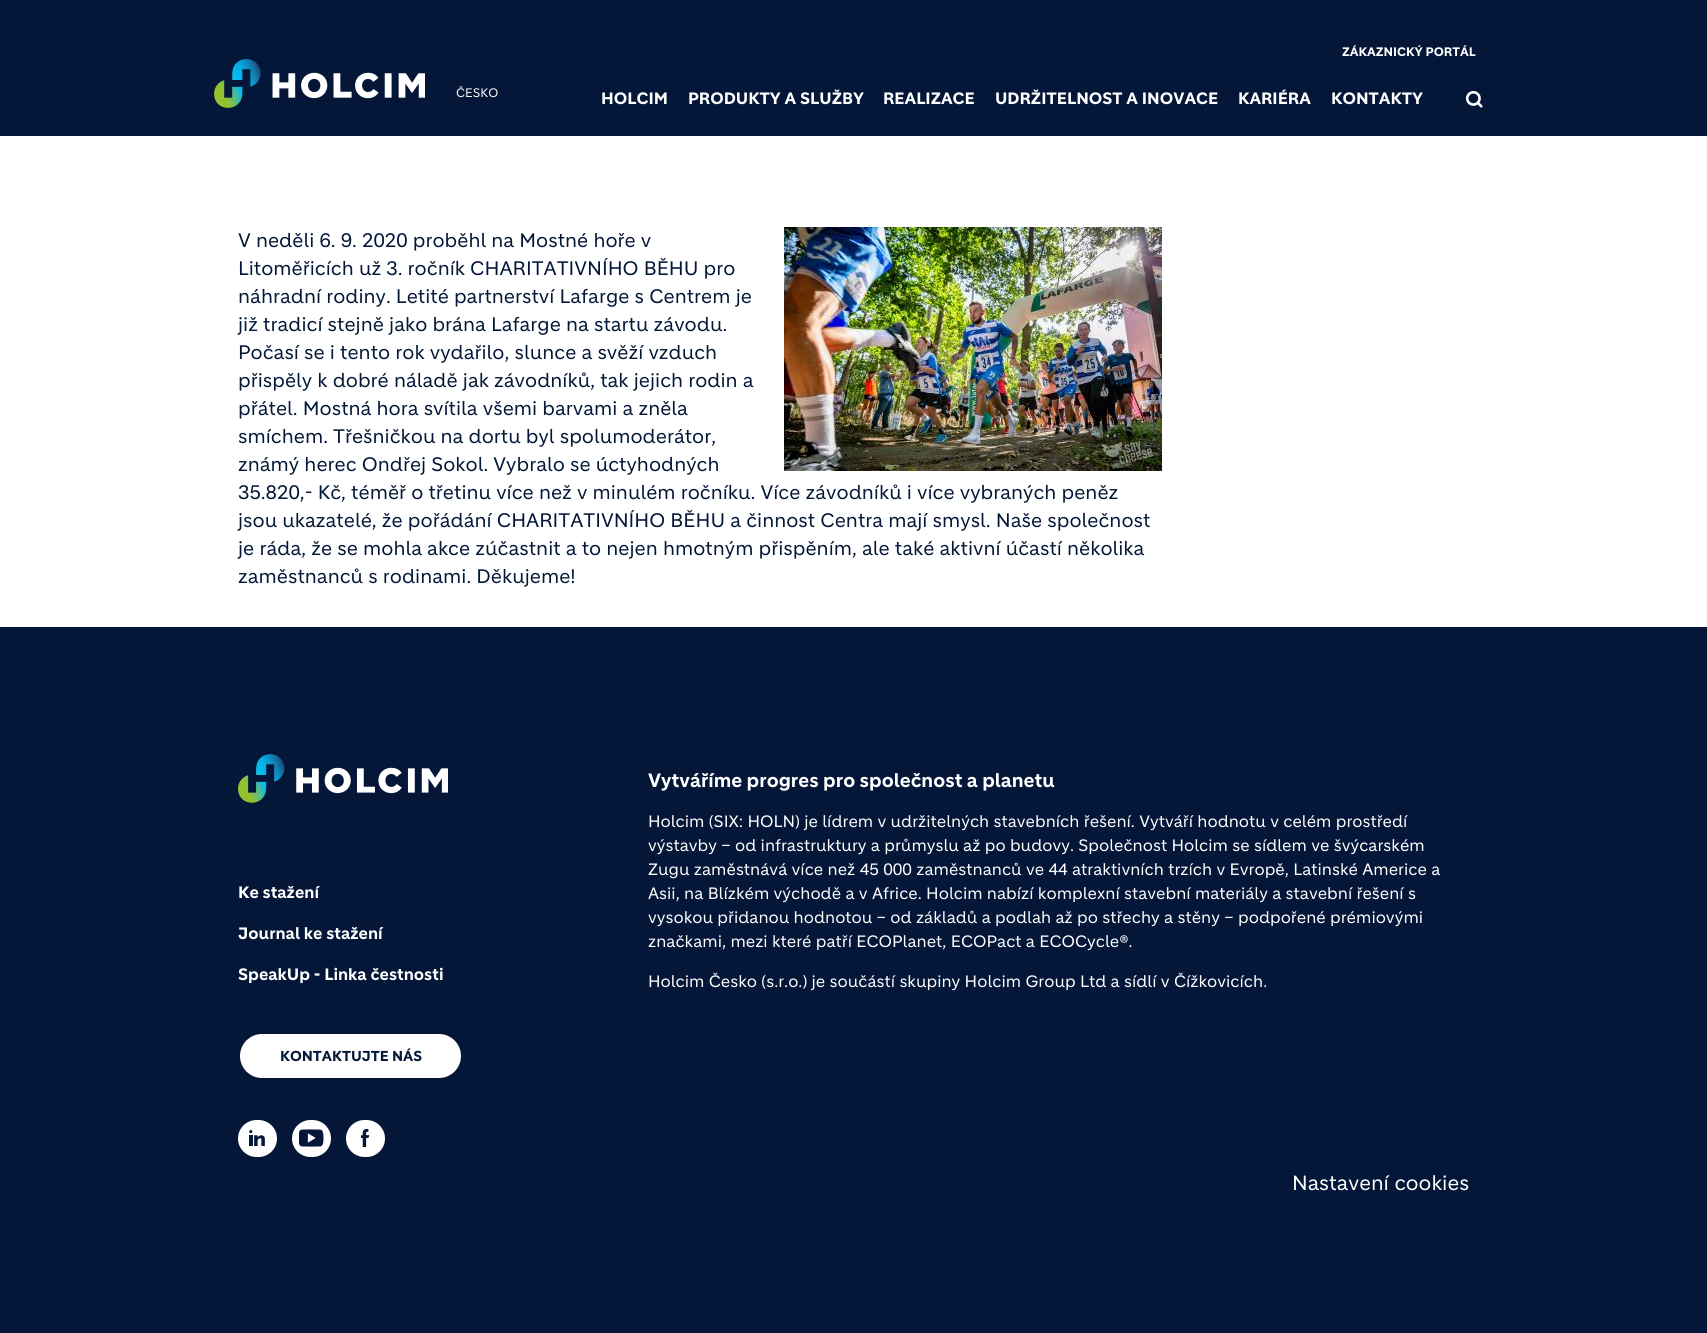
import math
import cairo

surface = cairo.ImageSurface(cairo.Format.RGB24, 1707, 1333)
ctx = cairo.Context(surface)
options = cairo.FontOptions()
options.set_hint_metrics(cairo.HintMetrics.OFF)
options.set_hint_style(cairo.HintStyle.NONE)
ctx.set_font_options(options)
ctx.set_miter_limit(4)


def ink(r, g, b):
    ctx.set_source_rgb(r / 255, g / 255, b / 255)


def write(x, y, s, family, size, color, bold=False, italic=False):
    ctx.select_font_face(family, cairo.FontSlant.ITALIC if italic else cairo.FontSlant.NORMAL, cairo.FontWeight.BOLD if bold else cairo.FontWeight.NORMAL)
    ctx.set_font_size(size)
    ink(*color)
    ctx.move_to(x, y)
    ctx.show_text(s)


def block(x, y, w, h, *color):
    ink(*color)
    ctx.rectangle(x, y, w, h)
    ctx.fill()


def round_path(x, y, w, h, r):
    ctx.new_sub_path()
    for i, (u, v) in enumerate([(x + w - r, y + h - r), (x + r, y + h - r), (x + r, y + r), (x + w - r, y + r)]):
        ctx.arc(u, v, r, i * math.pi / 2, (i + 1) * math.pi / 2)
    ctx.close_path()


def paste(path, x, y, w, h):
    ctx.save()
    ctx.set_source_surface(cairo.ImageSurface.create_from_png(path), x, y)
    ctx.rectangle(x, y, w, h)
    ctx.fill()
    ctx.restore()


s1 = dict(family="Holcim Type", size=12, color=(246, 246, 246))
s2 = dict(family="Holcim Type", size=12, color=(255, 255, 255), bold=True)
s3 = dict(family="Holcim Type", size=16, color=(255, 255, 255), bold=True)
s4 = dict(family="Holcim Type", size=19, color=(4, 23, 57))
s5 = dict(family="Holcim Type", size=14, color=(4, 23, 57), bold=True)
s6 = dict(family="Holcim Type", size=18.7, color=(255, 255, 255), bold=True)
s7 = dict(family="Holcim Type", size=16, color=(255, 255, 255))
s8 = dict(family="Holcim Type", size=20, color=(255, 255, 255))

ink(255, 255, 255)
ctx.paint()
block(0, 0, 1707, 136, 4, 23, 57)
paste("pic1.png", 214, 59, 211, 49)
write(456, 97, "ČESKO", **s1)
write(1342, 56, "ZÁKAZNICKÝ PORTÁL", **s2)
write(601, 104, "HOLCIM", **s3)
write(688, 104, "PRODUKTY A SLUŽBY", **s3)
write(883, 104, "REALIZACE", **s3)
write(995, 104, "UDRŽITELNOST A INOVACE", **s3)
write(1238, 104, "KARIÉRA", **s3)
write(1331, 104, "KONTAKTY", **s3)
paste("pic2.png", 1466, 91, 17, 17)
paste("pic3.png", 784, 227, 378, 244)
write(238, 247, "V neděli 6. 9. 2020 proběhl na Mostné hoře v", **s4)
write(238, 275, "Litoměřicích už 3. ročník CHARITATIVNÍHO BĚHU pro", **s4)
write(238, 303, "náhradní rodiny. Letité partnerství Lafarge s Centrem je", **s4)
write(238, 331, "již tradicí stejně jako brána Lafarge na startu závodu.", **s4)
write(238, 359, "Počasí se i tento rok vydařilo, slunce a svěží vzduch", **s4)
write(238, 387, "přispěly k dobré náladě jak závodníků, tak jejich rodin a", **s4)
write(238, 415, "přátel. Mostná hora svítila všemi barvami a zněla", **s4)
write(238, 443, "smíchem. Třešničkou na dortu byl spolumoderátor,", **s4)
write(238, 471, "známý herec Ondřej Sokol. Vybralo se úctyhodných", **s4)
write(238, 499, "35.820,- Kč, téměř o třetinu více než v minulém ročníku. Více závodníků i více vybraných peněz", **s4)
write(238, 527, "jsou ukazatelé, že pořádání CHARITATIVNÍHO BĚHU a činnost Centra mají smysl. Naše společnost", **s4)
write(238, 555, "je ráda, že se mohla akce zúčastnit a to nejen hmotným přispěním, ale také aktivní účastí několika", **s4)
write(238, 583, "zaměstnanců s rodinami. Děkujeme!", **s4)
block(0, 627, 1707, 706, 4, 23, 57)
paste("pic4.png", 238, 754, 210, 49)
write(238, 898, "Ke stažení", **s3)
write(238, 939, "Journal ke stažení", **s3)
write(238, 980, "SpeakUp - Linka čestnosti", **s3)
round_path(239, 1033, 223, 46, 23)
ctx.fill_preserve()
ink(4, 23, 57)
ctx.stroke()
write(280, 1061, "KONTAKTUJTE NÁS", **s5)
ink(255, 255, 255)
round_path(238, 1120, 39, 37, 18.5)
ctx.fill()
paste("pic5.png", 249, 1130, 16, 16)
round_path(292, 1120, 39, 37, 18.5)
ctx.fill()
paste("pic6.png", 299, 1129, 25, 18)
round_path(346, 1120, 39, 37, 18.5)
ctx.fill()
paste("pic7.png", 361, 1129, 9, 18)
write(648, 787, "Vytváříme progres pro společnost a planetu", **s6)
write(648, 827, "Holcim (SIX: HOLN) je lídrem v udržitelných stavebních řešení. Vytváří hodnotu v celém prostředí", **s7)
write(648, 851, "výstavby – od infrastruktury a průmyslu až po budovy. Společnost Holcim se sídlem ve švýcarském", **s7)
write(648, 875, "Zugu zaměstnává více než 45 000 zaměstnanců ve 44 atraktivních trzích v Evropě, Latinské Americe a", **s7)
write(648, 899, "Asii, na Blízkém východě a v Africe. Holcim nabízí komplexní stavební materiály a stavební řešení s", **s7)
write(648, 923, "vysokou přidanou hodnotou – od základů a podlah až po střechy a stěny – podpořené prémiovými", **s7)
write(648, 947, "značkami, mezi které patří ECOPlanet, ECOPact a ECOCycle®.", **s7)
write(648, 987, "Holcim Česko (s.r.o.) je součástí skupiny Holcim Group Ltd a sídlí v Čížkovicích.", **s7)
write(1292, 1190, "Nastavení cookies", **s8)
surface.write_to_png("screenshot.png")
